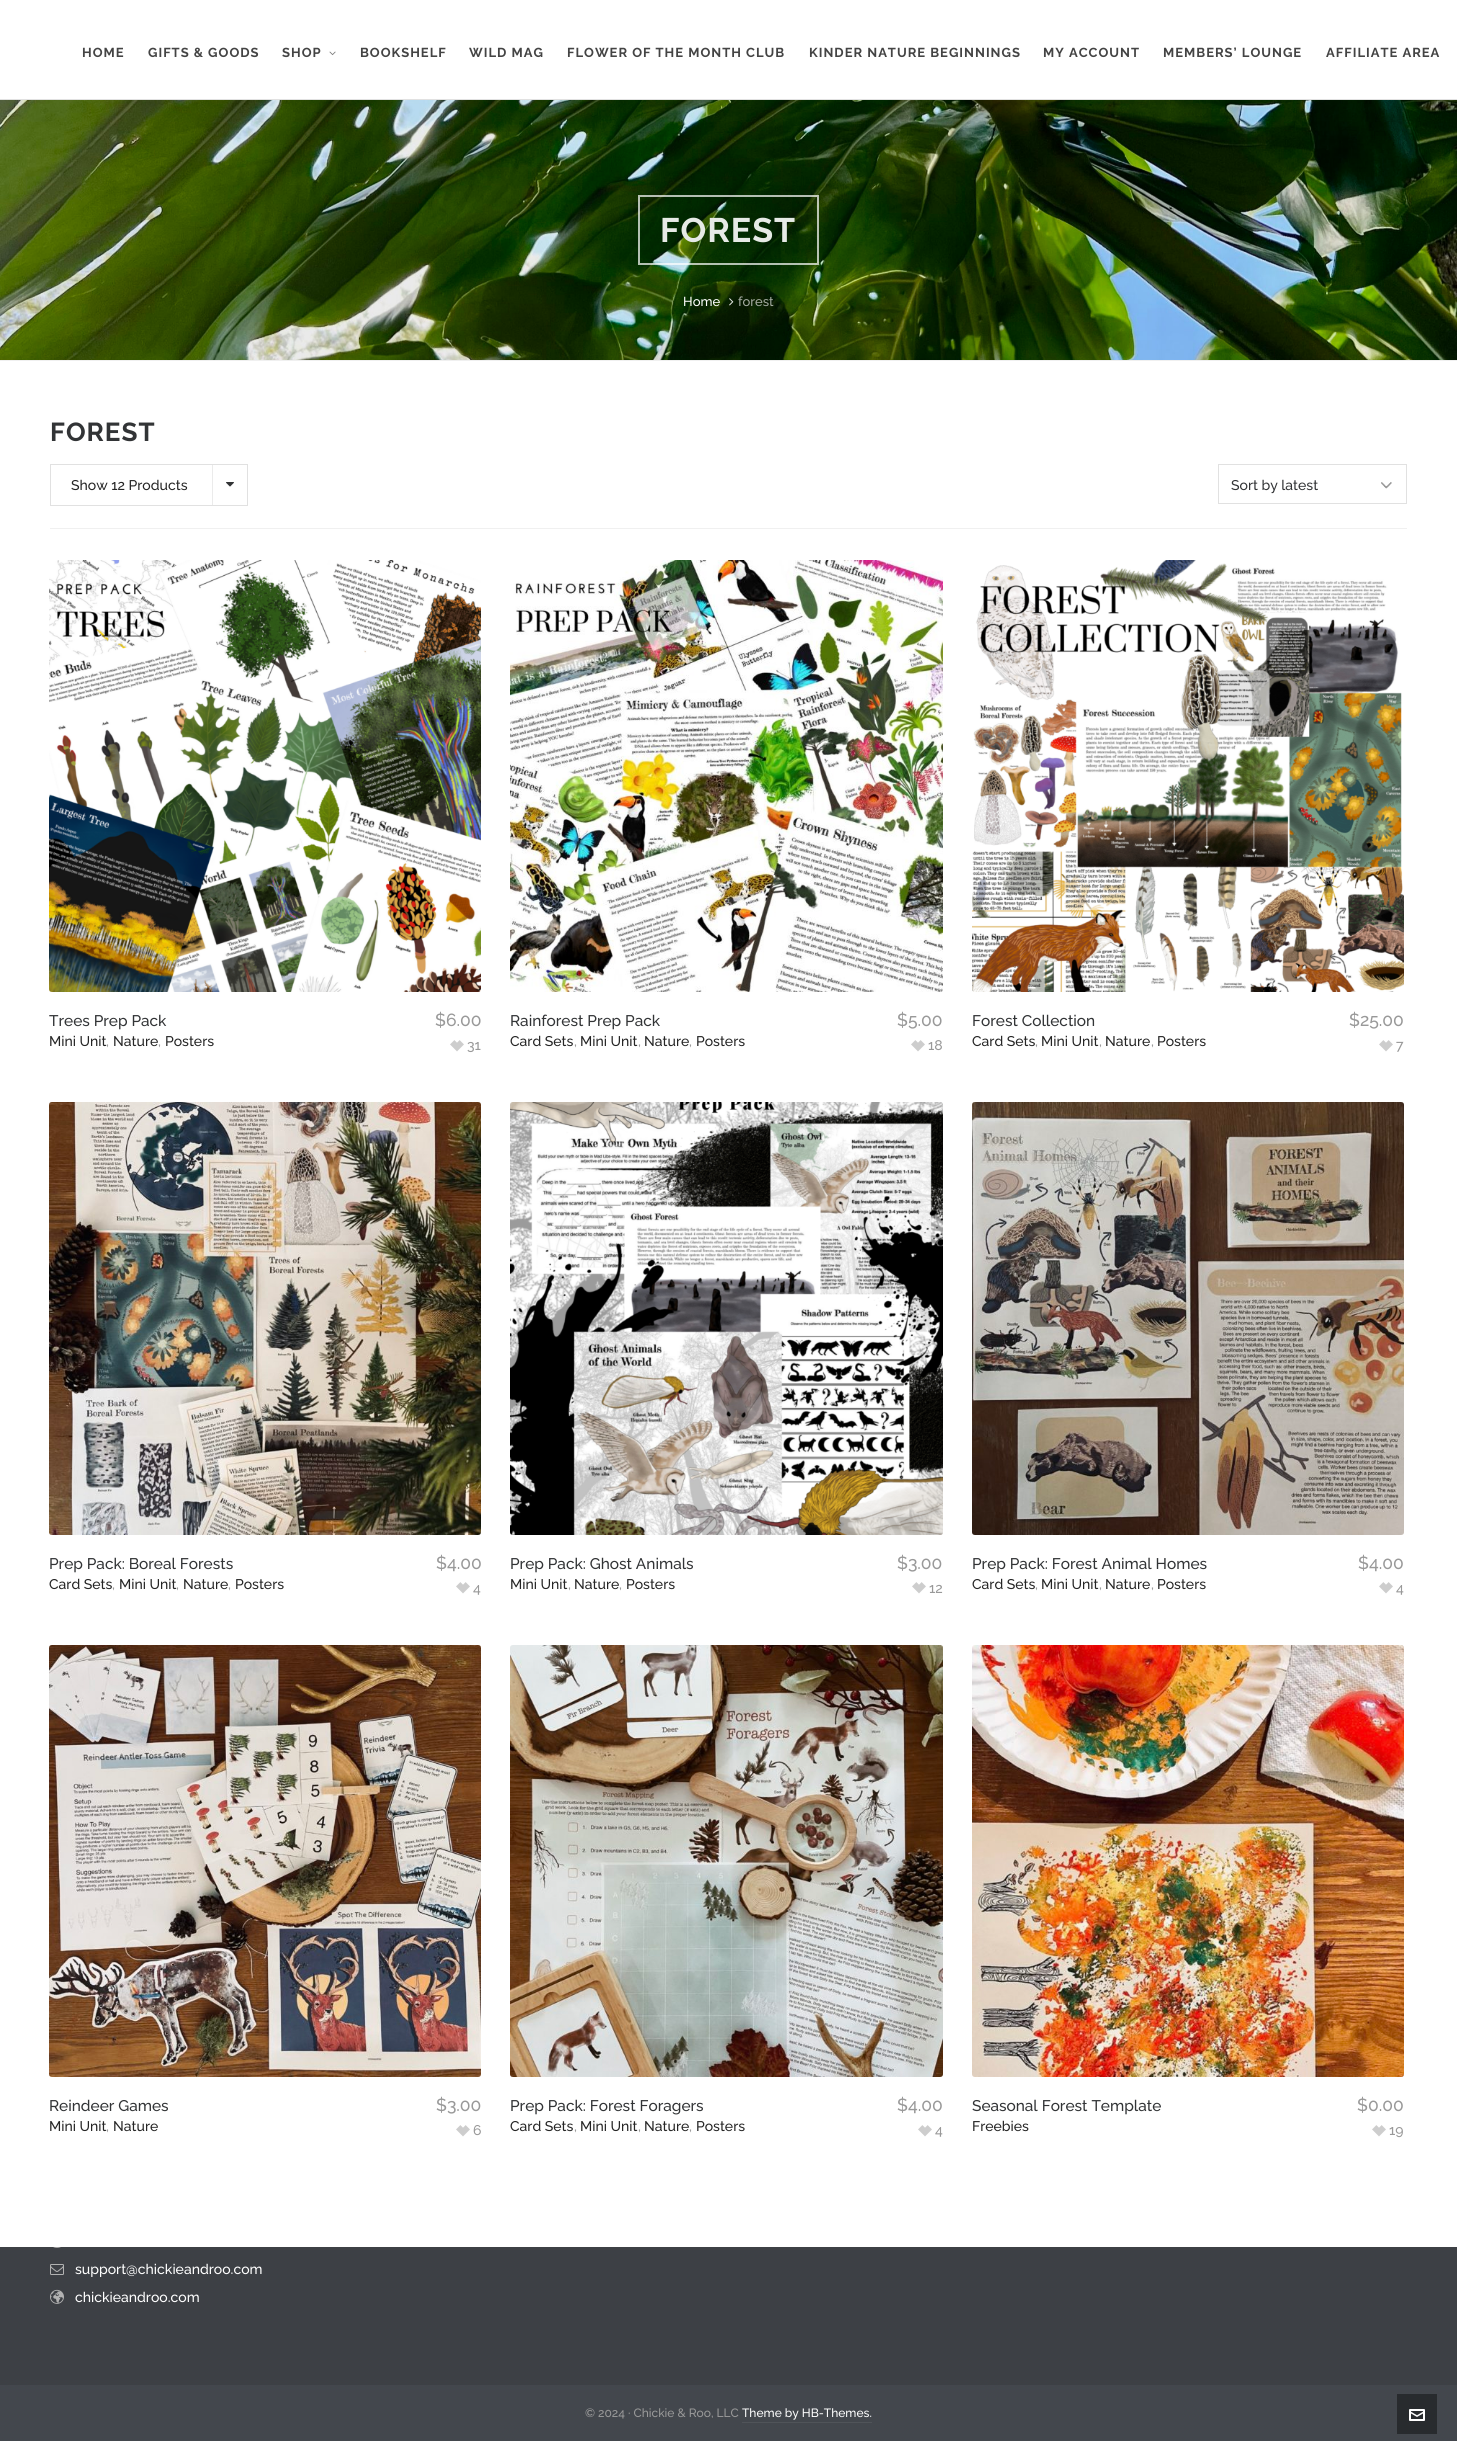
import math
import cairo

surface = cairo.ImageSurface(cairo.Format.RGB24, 1457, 2441)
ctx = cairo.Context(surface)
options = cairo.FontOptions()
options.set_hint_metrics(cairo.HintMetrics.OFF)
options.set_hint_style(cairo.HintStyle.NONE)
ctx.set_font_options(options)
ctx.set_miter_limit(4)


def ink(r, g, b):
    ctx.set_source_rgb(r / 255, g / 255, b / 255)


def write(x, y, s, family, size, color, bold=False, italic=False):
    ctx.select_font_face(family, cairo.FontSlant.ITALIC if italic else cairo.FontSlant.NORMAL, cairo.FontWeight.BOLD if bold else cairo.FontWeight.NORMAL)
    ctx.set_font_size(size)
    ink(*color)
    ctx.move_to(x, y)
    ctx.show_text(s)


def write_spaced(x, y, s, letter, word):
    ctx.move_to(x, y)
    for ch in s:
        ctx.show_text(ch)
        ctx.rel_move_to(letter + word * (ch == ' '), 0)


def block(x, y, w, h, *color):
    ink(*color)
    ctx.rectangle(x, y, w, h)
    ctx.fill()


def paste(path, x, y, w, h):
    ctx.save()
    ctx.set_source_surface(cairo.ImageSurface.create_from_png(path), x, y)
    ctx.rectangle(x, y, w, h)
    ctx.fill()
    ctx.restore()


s1 = dict(family="Raleway Medium", size=13, color=(255, 255, 255))
s2 = dict(family="Raleway Medium", size=13, color=(164, 171, 161))
s3 = dict(family="Raleway Medium", size=14, color=(37, 37, 37))
s4 = dict(family="Raleway Medium", size=14, color=(50, 52, 54))
s5 = dict(family="Raleway Medium", size=17.5, color=(153, 153, 153))
s6 = dict(family="Raleway Medium", size=15.4, color=(50, 52, 54))
s7 = dict(family="Raleway Medium", size=14, color=(153, 153, 153))
s8 = dict(family="Raleway Medium", size=14, color=(255, 255, 255))
s9 = dict(family="Raleway Medium", size=12, color=(153, 153, 153))
s10 = dict(family="Raleway Medium", size=12, color=(255, 255, 255))

ink(67, 71, 77)
ctx.paint()
block(0, 361, 1457, 1886, 255, 255, 255)
block(0, 0, 1457, 99, 255, 255, 255)
block(0, 99, 1457, 1, 225, 225, 225)
ctx.select_font_face("Raleway", cairo.FontSlant.NORMAL, cairo.FontWeight.BOLD)
ctx.set_font_size(13)
ink(68, 68, 68)
write_spaced(82, 57, "HOME", 1, 0)
write_spaced(148, 57, "GIFTS & GOODS", 1, 0)
write_spaced(282, 57, "SHOP", 1, 0)
paste("pic1.png", 329, 51, 7, 5)
write_spaced(360, 57, "BOOKSHELF", 1, 0)
write_spaced(469, 57, "WILD MAG", 1, 0)
write_spaced(567, 57, "FLOWER OF THE MONTH CLUB", 1, 0)
write_spaced(809, 57, "KINDER NATURE BEGINNINGS", 1, 0)
write_spaced(1043, 57, "MY ACCOUNT", 1, 0)
write_spaced(1163, 57, "MEMBERS’ LOUNGE", 1, 0)
write_spaced(1326, 57, "AFFILIATE AREA", 1, 0)
block(0, 360, 1457, 1, 240, 240, 240)
paste("pic2.png", 0, 100, 1457, 260)
ctx.rectangle(639, 196, 179, 68)
ctx.set_source_rgba(1, 1, 1, 0.7)
ctx.stroke()
ctx.set_font_size(34)
ink(230, 234, 230)
write_spaced(660, 242, "FOREST", 1, 0)
write(683, 306, "Home", **s1)
paste("pic3.png", 729, 298, 5, 8)
write(738, 306, "forest", **s2)
ctx.select_font_face("Raleway", cairo.FontSlant.NORMAL, cairo.FontWeight.BOLD)
ctx.set_font_size(26)
ink(50, 52, 54)
write_spaced(50, 441, "FOREST", 1, 0)
ctx.rectangle(50.5, 464.5, 197, 41)
ink(225, 225, 225)
ctx.set_line_width(1)
ctx.stroke()
write(71, 490, "Show 12 Products", **s3)
block(212, 465, 1, 40, 235, 235, 235)
paste("pic4.png", 226, 482, 8, 5)
paste("pic5.png", 1381, 482, 11, 7)
ctx.rectangle(1218.5, 464.5, 188, 39)
ink(225, 225, 225)
ctx.stroke()
write(1231, 490, "Sort by latest", **s4)
block(50, 528, 1357, 1, 240, 240, 240)
paste("pic6.png", 49, 560, 432, 432)
write(435, 1026, "$6.00", **s5)
write(49, 1026, "Trees Prep Pack", **s6)
write(49, 1046, "Mini Unit", **s3)
write(106, 1046, ",", **s7)
write(113, 1046, "Nature", **s3)
write(158, 1046, ",", **s7)
write(165, 1046, "Posters", **s3)
paste("pic7.png", 450, 1040, 14, 12)
write(467, 1050, "31", **s7)
paste("pic8.png", 510, 560, 433, 432)
write(897, 1026, "$5.00", **s5)
write(510, 1026, "Rainforest Prep Pack", **s6)
write(510, 1046, "Card Sets", **s3)
write(574, 1046, ",", **s7)
write(580, 1046, "Mini Unit", **s3)
write(638, 1046, ",", **s7)
write(644, 1046, "Nature", **s3)
write(689, 1046, ",", **s7)
write(696, 1046, "Posters", **s3)
paste("pic7.png", 911, 1040, 14, 12)
write(928, 1050, "18", **s7)
paste("pic9.png", 972, 560, 432, 432)
write(1349, 1026, "$25.00", **s5)
write(972, 1026, "Forest Collection", **s6)
write(972, 1046, "Card Sets", **s3)
write(1035, 1046, ",", **s7)
write(1041, 1046, "Mini Unit", **s3)
write(1099, 1046, ",", **s7)
write(1105, 1046, "Nature", **s3)
write(1151, 1046, ",", **s7)
write(1157, 1046, "Posters", **s3)
paste("pic7.png", 1379, 1040, 14, 12)
write(1396, 1050, "7", **s7)
paste("pic10.png", 49, 1102, 432, 433)
write(436, 1569, "$4.00", **s5)
write(49, 1569, "Prep Pack: Boreal Forests", **s6)
write(49, 1589, "Card Sets", **s3)
write(112, 1589, ",", **s7)
write(119, 1589, "Mini Unit", **s3)
write(176, 1589, ",", **s7)
write(183, 1589, "Nature", **s3)
write(228, 1589, ",", **s7)
write(235, 1589, "Posters", **s3)
paste("pic7.png", 456, 1582, 14, 12)
write(473, 1593, "4", **s7)
paste("pic11.png", 510, 1102, 433, 433)
write(897, 1569, "$3.00", **s5)
write(510, 1569, "Prep Pack: Ghost Animals", **s6)
write(510, 1589, "Mini Unit", **s3)
write(568, 1589, ",", **s7)
write(574, 1589, "Nature", **s3)
write(619, 1589, ",", **s7)
write(626, 1589, "Posters", **s3)
paste("pic7.png", 912, 1582, 14, 12)
write(929, 1593, "12", **s7)
paste("pic12.png", 972, 1102, 432, 433)
write(1358, 1569, "$4.00", **s5)
write(972, 1569, "Prep Pack: Forest Animal Homes", **s6)
write(972, 1589, "Card Sets", **s3)
write(1035, 1589, ",", **s7)
write(1041, 1589, "Mini Unit", **s3)
write(1099, 1589, ",", **s7)
write(1105, 1589, "Nature", **s3)
write(1151, 1589, ",", **s7)
write(1157, 1589, "Posters", **s3)
paste("pic7.png", 1379, 1582, 14, 12)
write(1396, 1593, "4", **s7)
paste("pic13.png", 49, 1645, 432, 432)
write(436, 2111, "$3.00", **s5)
write(49, 2111, "Reindeer Games", **s6)
write(49, 2131, "Mini Unit", **s3)
write(106, 2131, ",", **s7)
write(113, 2131, "Nature", **s3)
paste("pic7.png", 456, 2125, 14, 12)
write(473, 2135, "6", **s7)
paste("pic14.png", 510, 1645, 433, 432)
write(897, 2111, "$4.00", **s5)
write(510, 2111, "Prep Pack: Forest Foragers", **s6)
write(510, 2131, "Card Sets", **s3)
write(574, 2131, ",", **s7)
write(580, 2131, "Mini Unit", **s3)
write(638, 2131, ",", **s7)
write(644, 2131, "Nature", **s3)
write(689, 2131, ",", **s7)
write(696, 2131, "Posters", **s3)
paste("pic7.png", 918, 2125, 14, 12)
write(935, 2135, "4", **s7)
paste("pic15.png", 972, 1645, 432, 432)
write(1357, 2111, "$0.00", **s5)
write(972, 2111, "Seasonal Forest Template", **s6)
write(972, 2131, "Freebies", **s3)
paste("pic7.png", 1372, 2125, 14, 12)
write(1389, 2135, "19", **s7)
block(0, 2247, 1457, 138, 61, 64, 69)
paste("pic16.png", 53, 2247, 8, 1)
paste("pic17.png", 50, 2264, 14, 11)
write(75, 2274, "support@chickieandroo.com", **s8)
paste("pic18.png", 50, 2289, 14, 15)
write(75, 2302, "chickieandroo.com", **s8)
write(585, 2417, "© 2024 · Chickie & Roo, LLC", **s9)
write(742, 2417, "Theme by HB-Themes.", **s10)
block(742, 2422, 130, 1, 80, 84, 89)
block(1397, 2394, 40, 40, 40, 43, 46)
paste("pic19.png", 1409, 2409, 16, 12)
surface.write_to_png("screenshot.png")
